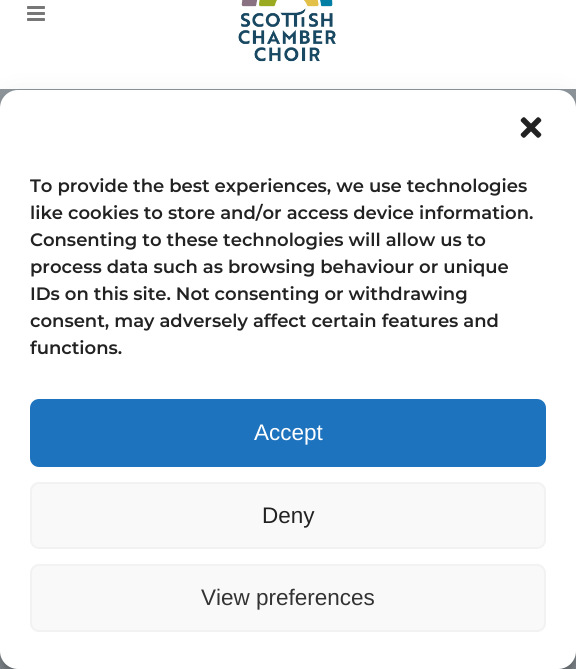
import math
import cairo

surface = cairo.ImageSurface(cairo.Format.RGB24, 576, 669)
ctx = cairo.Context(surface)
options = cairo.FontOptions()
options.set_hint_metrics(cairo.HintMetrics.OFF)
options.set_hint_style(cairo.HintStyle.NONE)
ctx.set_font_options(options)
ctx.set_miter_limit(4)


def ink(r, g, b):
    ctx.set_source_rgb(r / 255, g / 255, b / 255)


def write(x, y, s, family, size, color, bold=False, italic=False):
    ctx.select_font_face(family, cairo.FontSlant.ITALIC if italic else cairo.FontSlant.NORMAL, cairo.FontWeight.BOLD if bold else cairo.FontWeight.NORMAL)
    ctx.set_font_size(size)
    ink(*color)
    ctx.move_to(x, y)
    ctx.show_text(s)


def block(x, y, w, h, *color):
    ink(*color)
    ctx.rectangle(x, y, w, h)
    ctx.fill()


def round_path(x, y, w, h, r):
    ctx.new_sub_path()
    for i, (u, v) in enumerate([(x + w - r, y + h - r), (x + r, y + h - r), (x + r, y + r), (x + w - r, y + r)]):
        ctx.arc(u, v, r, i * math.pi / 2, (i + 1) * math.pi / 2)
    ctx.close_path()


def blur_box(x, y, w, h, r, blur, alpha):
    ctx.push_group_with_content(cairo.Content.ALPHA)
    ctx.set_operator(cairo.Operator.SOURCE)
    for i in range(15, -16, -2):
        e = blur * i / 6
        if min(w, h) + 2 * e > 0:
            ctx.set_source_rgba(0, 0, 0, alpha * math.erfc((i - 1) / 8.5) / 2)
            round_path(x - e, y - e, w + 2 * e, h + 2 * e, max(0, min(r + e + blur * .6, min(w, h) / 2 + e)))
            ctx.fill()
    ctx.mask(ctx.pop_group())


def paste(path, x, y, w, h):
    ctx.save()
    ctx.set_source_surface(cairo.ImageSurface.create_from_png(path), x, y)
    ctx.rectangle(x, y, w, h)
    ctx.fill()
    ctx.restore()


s1 = dict(family="Montserrat SemiBold", size=18, color=(34, 34, 34))
s2 = dict(family="Liberation Sans", size=22.5, color=(255, 255, 255))
s3 = dict(family="Liberation Sans", size=22.5, color=(34, 34, 34))
s4 = dict(family="Liberation Sans", size=22.5, color=(51, 51, 51))

ink(141, 149, 155)
ctx.paint()
block(0, 0, 576, 89, 255, 255, 255)
paste("pic1.png", 27, 6, 18, 15)
paste("pic2.png", 238, 0, 98, 62)
ink(0, 0, 0)
blur_box(0, 99, 576, 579, 18, 4.5, 0.23)
blur_box(0, 105, 576, 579, 18, 15, 0.19)
ink(255, 255, 255)
round_path(0, 90, 576, 579, 18)
ctx.fill()
paste("pic3.png", 520, 117, 22, 21)
write(30, 192, "To provide the best experiences, we use technologies", **s1)
write(30, 219, "like cookies to store and/or access device information.", **s1)
write(30, 246, "Consenting to these technologies will allow us to", **s1)
write(30, 273, "process data such as browsing behaviour or unique", **s1)
write(30, 300, "IDs on this site. Not consenting or withdrawing", **s1)
write(30, 327, "consent, may adversely affect certain features and", **s1)
write(30, 354, "functions.", **s1)
ink(30, 115, 190)
round_path(31, 400, 514, 66, 8)
ctx.fill_preserve()
ctx.stroke()
write(254, 440, "Accept", **s2)
ink(249, 249, 249)
round_path(31, 483, 514, 65, 8)
ctx.fill_preserve()
ink(242, 242, 242)
ctx.stroke()
write(262, 523, "Deny", **s3)
ink(249, 249, 249)
round_path(31, 565, 514, 66, 8)
ctx.fill_preserve()
ink(242, 242, 242)
ctx.stroke()
write(201, 605, "View preferences", **s4)
surface.write_to_png("screenshot.png")
